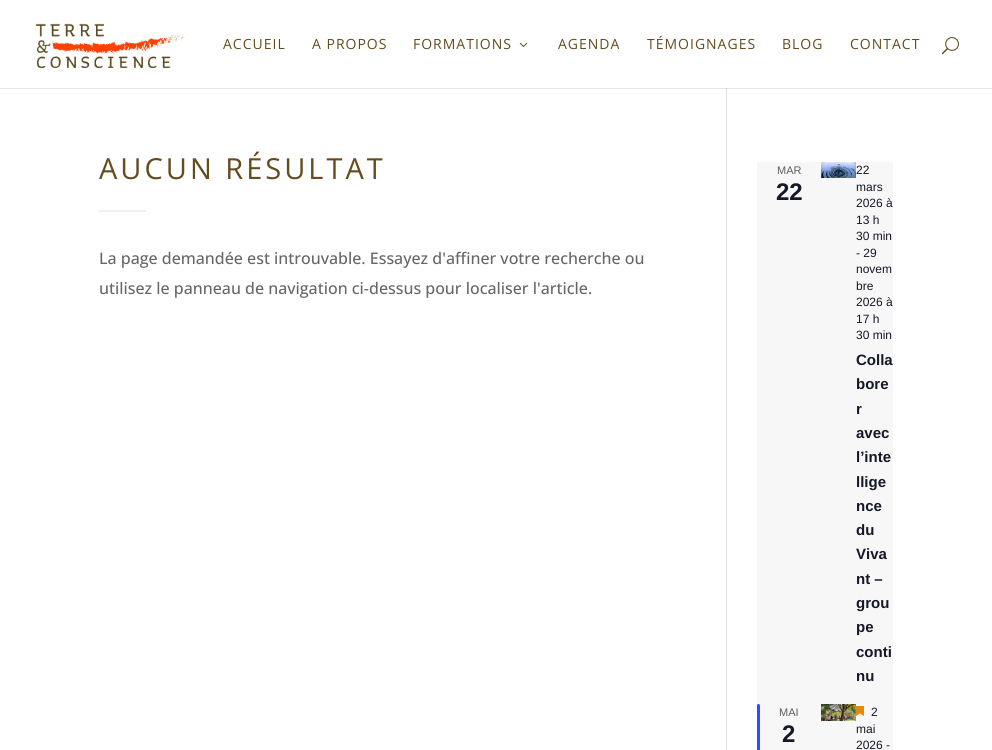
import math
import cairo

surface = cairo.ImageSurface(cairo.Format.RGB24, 992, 750)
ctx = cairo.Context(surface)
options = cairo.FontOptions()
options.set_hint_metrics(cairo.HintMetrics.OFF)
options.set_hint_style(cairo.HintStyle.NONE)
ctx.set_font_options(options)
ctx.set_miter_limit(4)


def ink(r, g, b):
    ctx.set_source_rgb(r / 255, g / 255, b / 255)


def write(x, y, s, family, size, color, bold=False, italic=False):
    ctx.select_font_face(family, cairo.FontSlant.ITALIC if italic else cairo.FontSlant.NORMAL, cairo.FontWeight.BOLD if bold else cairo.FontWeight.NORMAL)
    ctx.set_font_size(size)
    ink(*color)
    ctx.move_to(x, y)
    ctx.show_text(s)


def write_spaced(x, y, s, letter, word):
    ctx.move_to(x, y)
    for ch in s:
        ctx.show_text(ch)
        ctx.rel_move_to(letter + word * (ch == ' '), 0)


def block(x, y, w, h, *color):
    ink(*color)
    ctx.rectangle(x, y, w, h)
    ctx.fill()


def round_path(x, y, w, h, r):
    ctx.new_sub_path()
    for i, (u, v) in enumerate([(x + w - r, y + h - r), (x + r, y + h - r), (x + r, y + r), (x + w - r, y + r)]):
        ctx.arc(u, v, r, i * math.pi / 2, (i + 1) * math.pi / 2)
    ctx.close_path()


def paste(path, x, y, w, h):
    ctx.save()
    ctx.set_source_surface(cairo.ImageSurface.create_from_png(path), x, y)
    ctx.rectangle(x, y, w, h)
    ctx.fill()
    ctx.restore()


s1 = dict(family="Open Sans Medium", size=16, color=(102, 102, 102))
s2 = dict(family="Liberation Sans", size=11, color=(93, 93, 93))
s3 = dict(family="Liberation Sans", size=24, color=(20, 24, 39), bold=True)
s4 = dict(family="Liberation Sans", size=12, color=(20, 24, 39))
s5 = dict(family="Liberation Sans", size=15, color=(20, 24, 39), bold=True)

ink(255, 255, 255)
ctx.paint()
block(0, 88, 992, 1, 230, 230, 230)
paste("pic1.png", 35, 23, 153, 45)
ctx.select_font_face("Open Sans")
ctx.set_font_size(14)
ink(100, 76, 30)
write_spaced(223, 49, "ACCUEIL", 1, 0)
write_spaced(312, 49, "A PROPOS", 1, 0)
write_spaced(413, 49, "FORMATIONS", 1, 0)
paste("pic2.png", 519, 42, 9, 5)
write_spaced(558, 49, "AGENDA", 1, 0)
write_spaced(647, 49, "TÉMOIGNAGES", 1, 0)
write_spaced(782, 49, "BLOG", 1, 0)
write_spaced(850, 49, "CONTACT", 1, 0)
paste("pic3.png", 942, 37, 17, 18)
block(726, 88, 1, 662, 226, 226, 226)
block(726, 88, 1, 1, 203, 203, 203)
ctx.set_font_size(29)
ink(100, 76, 30)
write_spaced(99, 179, "AUCUN RÉSULTAT", 3, 0)
paste("pic4.png", 99, 210, 47, 2)
write(99, 264, "La page demandée est introuvable. Essayez d'affiner votre recherche ou", **s1)
write(99, 294, "utilisez le panneau de navigation ci-dessus pour localiser l'article.", **s1)
block(757, 162, 136, 588, 247, 247, 247)
write(777, 174, "MAR", **s2)
write(776, 200, "22", **s3)
paste("pic5.png", 821, 162, 35, 16)
write(856, 174, "22", **s4)
write(856, 191, "mars", **s4)
write(856, 207, "2026 à", **s4)
write(856, 224, "13 h", **s4)
write(856, 240, "30 min", **s4)
write(856, 257, "- 29", **s4)
write(856, 273, "novem", **s4)
write(856, 290, "bre", **s4)
write(856, 306, "2026 à", **s4)
write(856, 323, "17 h", **s4)
write(856, 339, "30 min", **s4)
write(856, 365, "Colla", **s5)
write(856, 389, "bore", **s5)
write(856, 414, "r", **s5)
write(856, 438, "avec", **s5)
write(856, 462, "l’inte", **s5)
write(856, 487, "llige", **s5)
write(856, 511, "nce", **s5)
write(856, 535, "du", **s5)
write(856, 559, "Viva", **s5)
write(856, 584, "nt –", **s5)
write(856, 608, "grou", **s5)
write(856, 632, "pe", **s5)
write(856, 657, "conti", **s5)
write(856, 681, "nu", **s5)
ink(51, 74, 255)
round_path(757, 704, 3, 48, 1.5)
ctx.fill()
write(779, 716, "MAI", **s2)
write(782, 742, "2", **s3)
paste("pic6.png", 821, 704, 35, 17)
paste("pic7.png", 856, 706, 8, 10)
write(871, 716, "2", **s4)
write(856, 733, "mai", **s4)
write(856, 749, "2026 -", **s4)
surface.write_to_png("screenshot.png")
